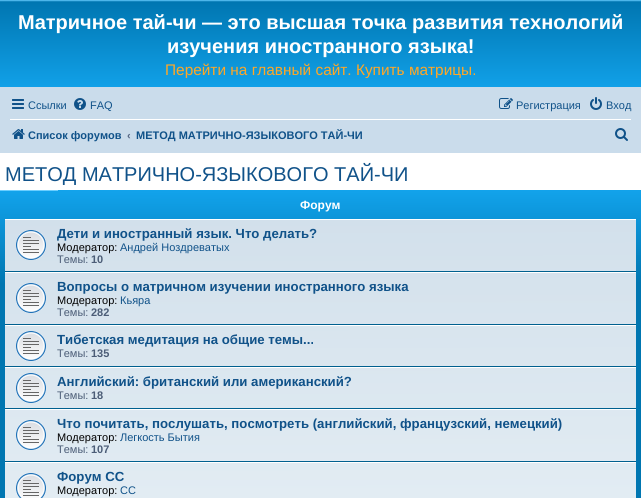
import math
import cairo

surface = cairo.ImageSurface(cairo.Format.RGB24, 641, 498)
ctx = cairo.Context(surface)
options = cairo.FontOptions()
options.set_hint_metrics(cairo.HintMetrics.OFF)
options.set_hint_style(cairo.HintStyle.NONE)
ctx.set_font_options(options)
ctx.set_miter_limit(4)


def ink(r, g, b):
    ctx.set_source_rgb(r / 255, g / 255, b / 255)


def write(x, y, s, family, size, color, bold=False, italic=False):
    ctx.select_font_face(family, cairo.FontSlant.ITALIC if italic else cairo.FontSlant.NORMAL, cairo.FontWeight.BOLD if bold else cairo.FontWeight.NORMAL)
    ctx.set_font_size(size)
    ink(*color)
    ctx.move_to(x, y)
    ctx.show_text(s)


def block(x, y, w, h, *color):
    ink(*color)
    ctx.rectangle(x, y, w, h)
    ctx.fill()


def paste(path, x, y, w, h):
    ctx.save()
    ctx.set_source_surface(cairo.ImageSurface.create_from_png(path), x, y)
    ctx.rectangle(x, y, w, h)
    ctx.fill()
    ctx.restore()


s1 = dict(family="Liberation Sans", size=20, color=(255, 255, 255), bold=True)
s2 = dict(family="Liberation Sans", size=15.4, color=(255, 167, 38))
s3 = dict(family="Liberation Sans", size=11, color=(16, 82, 137))
s4 = dict(family="Liberation Sans", size=11, color=(16, 82, 137), bold=True)
s5 = dict(family="Liberation Sans", size=11, color=(83, 100, 130), bold=True)
s6 = dict(family="Liberation Sans", size=20, color=(16, 82, 137))
s7 = dict(family="Liberation Sans", size=12, color=(255, 255, 255), bold=True)
s8 = dict(family="Liberation Sans", size=13.2, color=(16, 82, 137), bold=True)
s9 = dict(family="Liberation Sans", size=11, color=(0, 0, 0))
s10 = dict(family="Liberation Sans", size=11, color=(76, 93, 119))
s11 = dict(family="Liberation Sans", size=11, color=(76, 93, 119), bold=True)

ink(255, 255, 255)
ctx.paint()
gradient = cairo.LinearGradient(321, 0, 321, 92)
gradient.add_color_stop_rgba(0, 0.416, 0.808, 1, 1)
gradient.add_color_stop_rgba(0.02, 0, 0.463, 0.694, 1)
gradient.add_color_stop_rgba(1, 0.071, 0.639, 0.922, 1)
ctx.set_source(gradient)
ctx.rectangle(0, 0, 641, 87)
ctx.fill()
write(18, 29, "Матричное тай-чи — это высшая точка развития технологий", **s1)
write(167, 53, "изучения иностранного языка!", **s1)
ctx.save()
ctx.rectangle(10, 63, 621, 15)
ctx.clip()
write(165, 75, "Перейти на главный сайт. Купить матрицы.", **s2)
ctx.restore()
block(0, 87, 641, 66, 202, 220, 235)
paste("pic1.png", 12, 99, 12, 10)
write(28, 109, "Ссылки", **s3)
paste("pic2.png", 74, 98, 12, 12)
write(90, 109, "FAQ", **s3)
paste("pic3.png", 499, 98, 14, 11)
write(516, 109, "Регистрация", **s3)
paste("pic4.png", 590, 97, 12, 13)
write(606, 109, "Вход", **s3)
block(10, 119, 621, 1, 255, 255, 255)
paste("pic5.png", 12, 129, 13, 10)
write(28, 139, "Список форумов", **s4)
write(127, 139, "‹", **s5)
write(136, 139, "МЕТОД МАТРИЧНО-ЯЗЫКОВОГО ТАЙ-ЧИ", **s4)
paste("pic6.png", 615, 128, 13, 13)
write(5, 181, "МЕТОД МАТРИЧНО-ЯЗЫКОВОГО ТАЙ-ЧИ", **s6)
gradient = cairo.LinearGradient(320, 190, 321, 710)
gradient.add_color_stop_rgba(0, 0.416, 0.808, 1, 1)
gradient.add_color_stop_rgba(0, 0.071, 0.639, 0.922, 1)
gradient.add_color_stop_rgba(0.18, 0, 0.463, 0.694, 1)
gradient.add_color_stop_rgba(1, 0, 0.463, 0.694, 1)
ctx.set_source(gradient)
ctx.rectangle(0, 190, 641, 308)
ctx.fill()
write(300, 209, "Форум", **s7)
gradient = cairo.LinearGradient(320, 219, 321, 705)
gradient.add_color_stop_rgba(0, 0.824, 0.878, 0.922, 1)
gradient.add_color_stop_rgba(1, 0.933, 0.961, 0.976, 1)
ctx.set_source(gradient)
ctx.rectangle(5, 220, 631, 278)
ctx.fill()
block(5, 219, 631, 1, 255, 255, 255)
block(5, 271, 631, 1, 0, 96, 143)
paste("pic7.png", 16, 230, 30, 30)
write(57, 238, "Дети и иностранный язык. Что делать?", **s8)
write(57, 251, "Модератор:", **s9)
write(120, 251, "Андрей Ноздреватых", **s3)
write(57, 263, "Темы:", **s10)
write(91, 263, "10", **s11)
block(5, 272, 631, 1, 255, 255, 255)
block(5, 324, 631, 1, 0, 96, 143)
paste("pic8.png", 16, 283, 30, 30)
write(57, 291, "Вопросы о матричном изучении иностранного языка", **s8)
write(57, 304, "Модератор:", **s9)
write(120, 304, "Кьяра", **s3)
write(57, 316, "Темы:", **s10)
write(91, 316, "282", **s11)
block(5, 325, 631, 1, 255, 255, 255)
block(5, 366, 631, 1, 0, 96, 143)
paste("pic9.png", 16, 331, 30, 30)
write(57, 344, "Тибетская медитация на общие темы...", **s8)
write(57, 357, "Темы:", **s10)
write(91, 357, "135", **s11)
block(5, 367, 631, 1, 255, 255, 255)
block(5, 408, 631, 1, 0, 96, 143)
paste("pic10.png", 16, 373, 30, 30)
write(57, 386, "Английский: британский или американский?", **s8)
write(57, 399, "Темы:", **s10)
write(91, 399, "18", **s11)
block(5, 409, 631, 1, 255, 255, 255)
block(5, 461, 631, 1, 0, 96, 143)
paste("pic11.png", 16, 420, 30, 30)
write(57, 428, "Что почитать, послушать, посмотреть (английский, французский, немецкий)", **s8)
write(57, 441, "Модератор:", **s9)
write(120, 441, "Легкость Бытия", **s3)
write(57, 453, "Темы:", **s10)
write(91, 453, "107", **s11)
block(5, 462, 631, 1, 255, 255, 255)
paste("pic12.png", 16, 473, 30, 25)
write(57, 481, "Форум СС", **s8)
write(57, 494, "Модератор:", **s9)
write(120, 494, "CC", **s3)
surface.write_to_png("screenshot.png")
